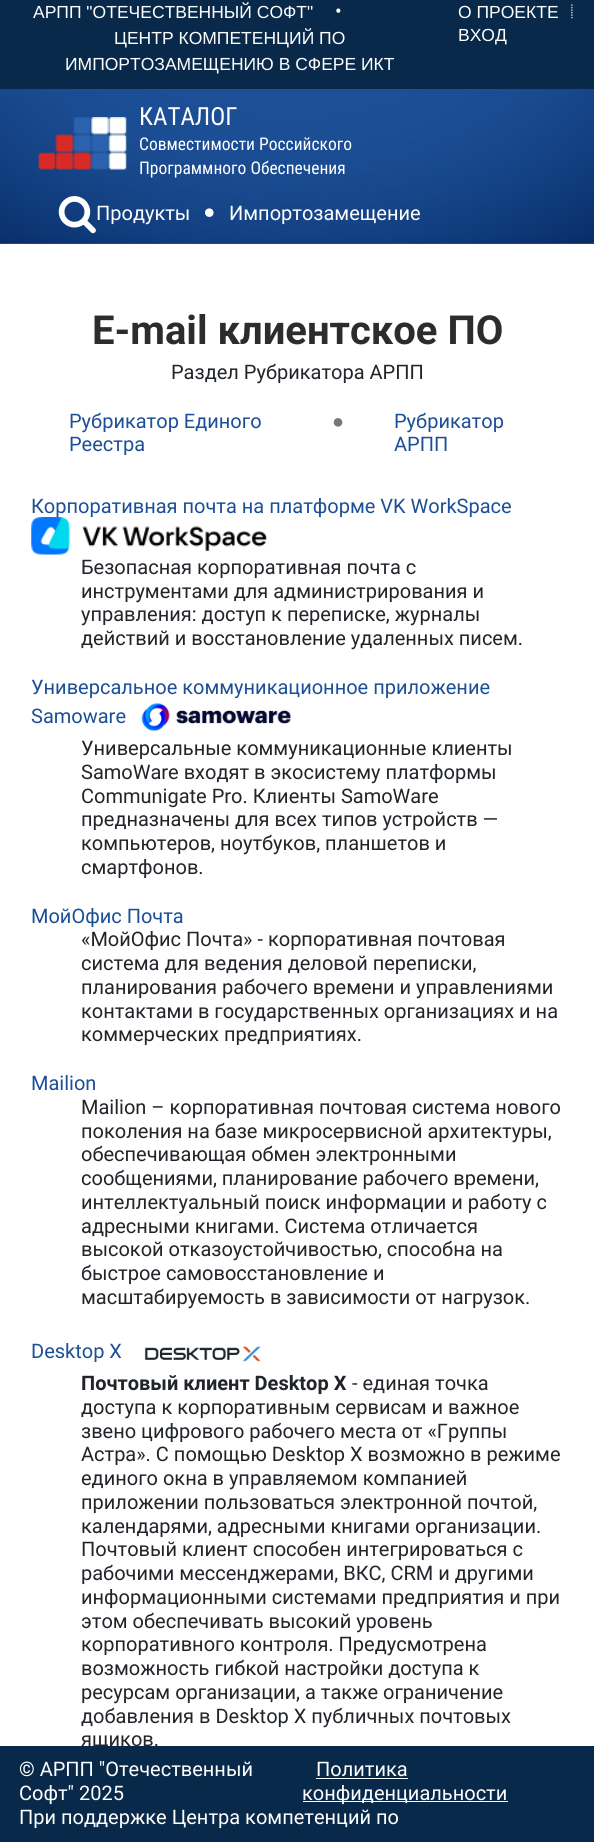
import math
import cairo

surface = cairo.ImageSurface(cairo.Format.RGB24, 594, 1842)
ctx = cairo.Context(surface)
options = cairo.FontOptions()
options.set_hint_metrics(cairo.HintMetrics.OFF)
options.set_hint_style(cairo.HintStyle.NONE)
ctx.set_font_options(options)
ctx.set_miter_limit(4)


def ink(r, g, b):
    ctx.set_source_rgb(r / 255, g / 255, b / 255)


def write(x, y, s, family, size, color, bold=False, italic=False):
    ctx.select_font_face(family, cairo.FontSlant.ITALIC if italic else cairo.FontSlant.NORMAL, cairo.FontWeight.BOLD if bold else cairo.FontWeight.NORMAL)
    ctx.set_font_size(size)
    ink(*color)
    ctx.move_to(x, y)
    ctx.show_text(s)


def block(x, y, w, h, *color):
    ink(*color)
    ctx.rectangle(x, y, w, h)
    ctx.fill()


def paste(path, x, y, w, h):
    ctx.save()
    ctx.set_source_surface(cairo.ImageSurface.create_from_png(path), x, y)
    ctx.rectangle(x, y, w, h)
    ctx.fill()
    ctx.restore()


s1 = dict(family="Liberation Sans", size=17.5, color=(255, 255, 255))
s2 = dict(family="Roboto", size=20, color=(255, 255, 255))
s3 = dict(family="Roboto Condensed", size=25, color=(255, 255, 255))
s4 = dict(family="Roboto Condensed", size=17.5, color=(255, 255, 255))
s5 = dict(family="Roboto", size=40, color=(44, 44, 44), bold=True)
s6 = dict(family="Roboto", size=20, color=(33, 37, 41))
s7 = dict(family="Roboto", size=20, color=(28, 79, 150))
s8 = dict(family="Liberation Sans", size=20, color=(119, 119, 119))
s9 = dict(family="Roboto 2", size=20, color=(33, 37, 41), bold=True)

ink(255, 255, 255)
ctx.paint()
block(0, 243, 594, 1, 28, 79, 150)
block(0, 0, 594, 89, 9, 41, 74)
write(33, 18, "АРПП \"ОТЕЧЕСТВЕННЫЙ СОФТ\"", **s1)
write(335, 18, "•", **s2)
write(114, 44, "ЦЕНТР КОМПЕТЕНЦИЙ ПО", **s1)
write(65, 70, "ИМПОРТОЗАМЕЩЕНИЮ В СФЕРЕ ИКТ", **s1)
write(458, 18, "О ПРОЕКТЕ", **s1)
paste("pic1.png", 571, 4, 2, 15)
write(458, 41, "ВХОД", **s1)
paste("pic2.png", 0, 89, 594, 155)
paste("pic3.png", 38, 117, 89, 53)
write(139, 125, "КАТАЛОГ", **s3)
write(139, 150, "Совместимости Российского", **s4)
write(139, 174, "Программного Обеспечения", **s4)
paste("pic4.png", 58, 196, 38, 38)
write(96, 220, "Продукты", **s2)
paste("pic5.png", 205, 208, 9, 9)
write(229, 220, "Импортозамещение", **s2)
write(92, 344, "E-mail клиентское ПО", **s5)
write(171, 379, "Раздел Рубрикатора АРПП", **s6)
write(69, 428, "Рубрикатор Единого", **s7)
write(69, 451, "Реестра", **s7)
write(332, 428, "●", **s8)
write(394, 428, "Рубрикатор", **s7)
write(394, 451, "АРПП", **s7)
write(31, 513, "Корпоративная почта на платформе VK WorkSpace", **s7)
paste("pic6.png", 31, 517, 236, 38)
write(81, 574, "Безопасная корпоративная почта с", **s6)
write(81, 598, "инструментами для администрирования и", **s6)
write(81, 621, "управления: доступ к переписке, журналы", **s6)
write(81, 645, "действий и восстановление удаленных писем.", **s6)
write(31, 694, "Универсальное коммуникационное приложение", **s7)
write(31, 723, "Samoware", **s7)
paste("pic7.png", 141, 698, 150, 33)
write(81, 755, "Универсальные коммуникационные клиенты", **s6)
write(81, 779, "SamoWare входят в экосистему платформы", **s6)
write(81, 803, "Communigate Pro. Клиенты SamoWare", **s6)
write(81, 826, "предназначены для всех типов устройств —", **s6)
write(81, 850, "компьютеров, ноутбуков, планшетов и", **s6)
write(81, 874, "смартфонов.", **s6)
write(31, 923, "МойОфис Почта", **s7)
write(81, 946, "«МойОфис Почта» - корпоративная почтовая", **s6)
write(81, 970, "система для ведения деловой переписки,", **s6)
write(81, 994, "планирования рабочего времени и управлениями", **s6)
write(81, 1018, "контактами в государственных организациях и на", **s6)
write(81, 1041, "коммерческих предприятиях.", **s6)
write(31, 1090, "Mailion", **s7)
write(81, 1114, "Mailion – корпоративная почтовая система нового", **s6)
write(81, 1138, "поколения на базе микросервисной архитектуры,", **s6)
write(81, 1161, "обеспечивающая обмен электронными", **s6)
write(81, 1185, "сообщениями, планирование рабочего времени,", **s6)
write(81, 1209, "интеллектуальный поиск информации и работу с", **s6)
write(81, 1233, "адресными книгами. Система отличается", **s6)
write(81, 1256, "высокой отказоустойчивостью, способна на", **s6)
write(81, 1280, "быстрое самовосстановление и", **s6)
write(81, 1304, "масштабируемость в зависимости от нагрузок.", **s6)
write(31, 1358, "Desktop X", **s7)
paste("pic8.png", 144, 1346, 117, 16)
write(81, 1390, "Почтовый клиент Desktop X", **s9)
write(352, 1390, "- единая точка", **s6)
write(81, 1414, "доступа к корпоративным сервисам и важное", **s6)
write(81, 1438, "звено цифрового рабочего места от «Группы", **s6)
write(81, 1461, "Астра». С помощью Desktop X возможно в режиме", **s6)
write(81, 1485, "единого окна в управляемом компанией", **s6)
write(81, 1509, "приложении пользоваться электронной почтой,", **s6)
write(81, 1533, "календарями, адресными книгами организации.", **s6)
write(81, 1556, "Почтовый клиент способен интегрироваться с", **s6)
write(81, 1580, "рабочими мессенджерами, ВКС, CRM и другими", **s6)
write(81, 1604, "информационными системами предприятия и при", **s6)
write(81, 1628, "этом обеспечивать высокий уровень", **s6)
write(81, 1651, "корпоративного контроля. Предусмотрена", **s6)
write(81, 1675, "возможность гибкой настройки доступа к", **s6)
write(81, 1699, "ресурсам организации, а также ограничение", **s6)
write(81, 1723, "добавления в Desktop X публичных почтовых", **s6)
write(81, 1746, "ящиков.", **s6)
block(0, 1746, 594, 96, 9, 41, 74)
write(19, 1776, "© АРПП \"Отечественный", **s2)
write(19, 1800, "Софт\" 2025", **s2)
write(316, 1776, "Политика", **s2)
block(316, 1778, 92, 1, 255, 255, 255)
block(303, 1801, 205, 1, 255, 255, 255)
write(302, 1800, "конфиденциальности", **s2)
write(19, 1824, "При поддержке Центра компетенций по", **s2)
surface.write_to_png("screenshot.png")
